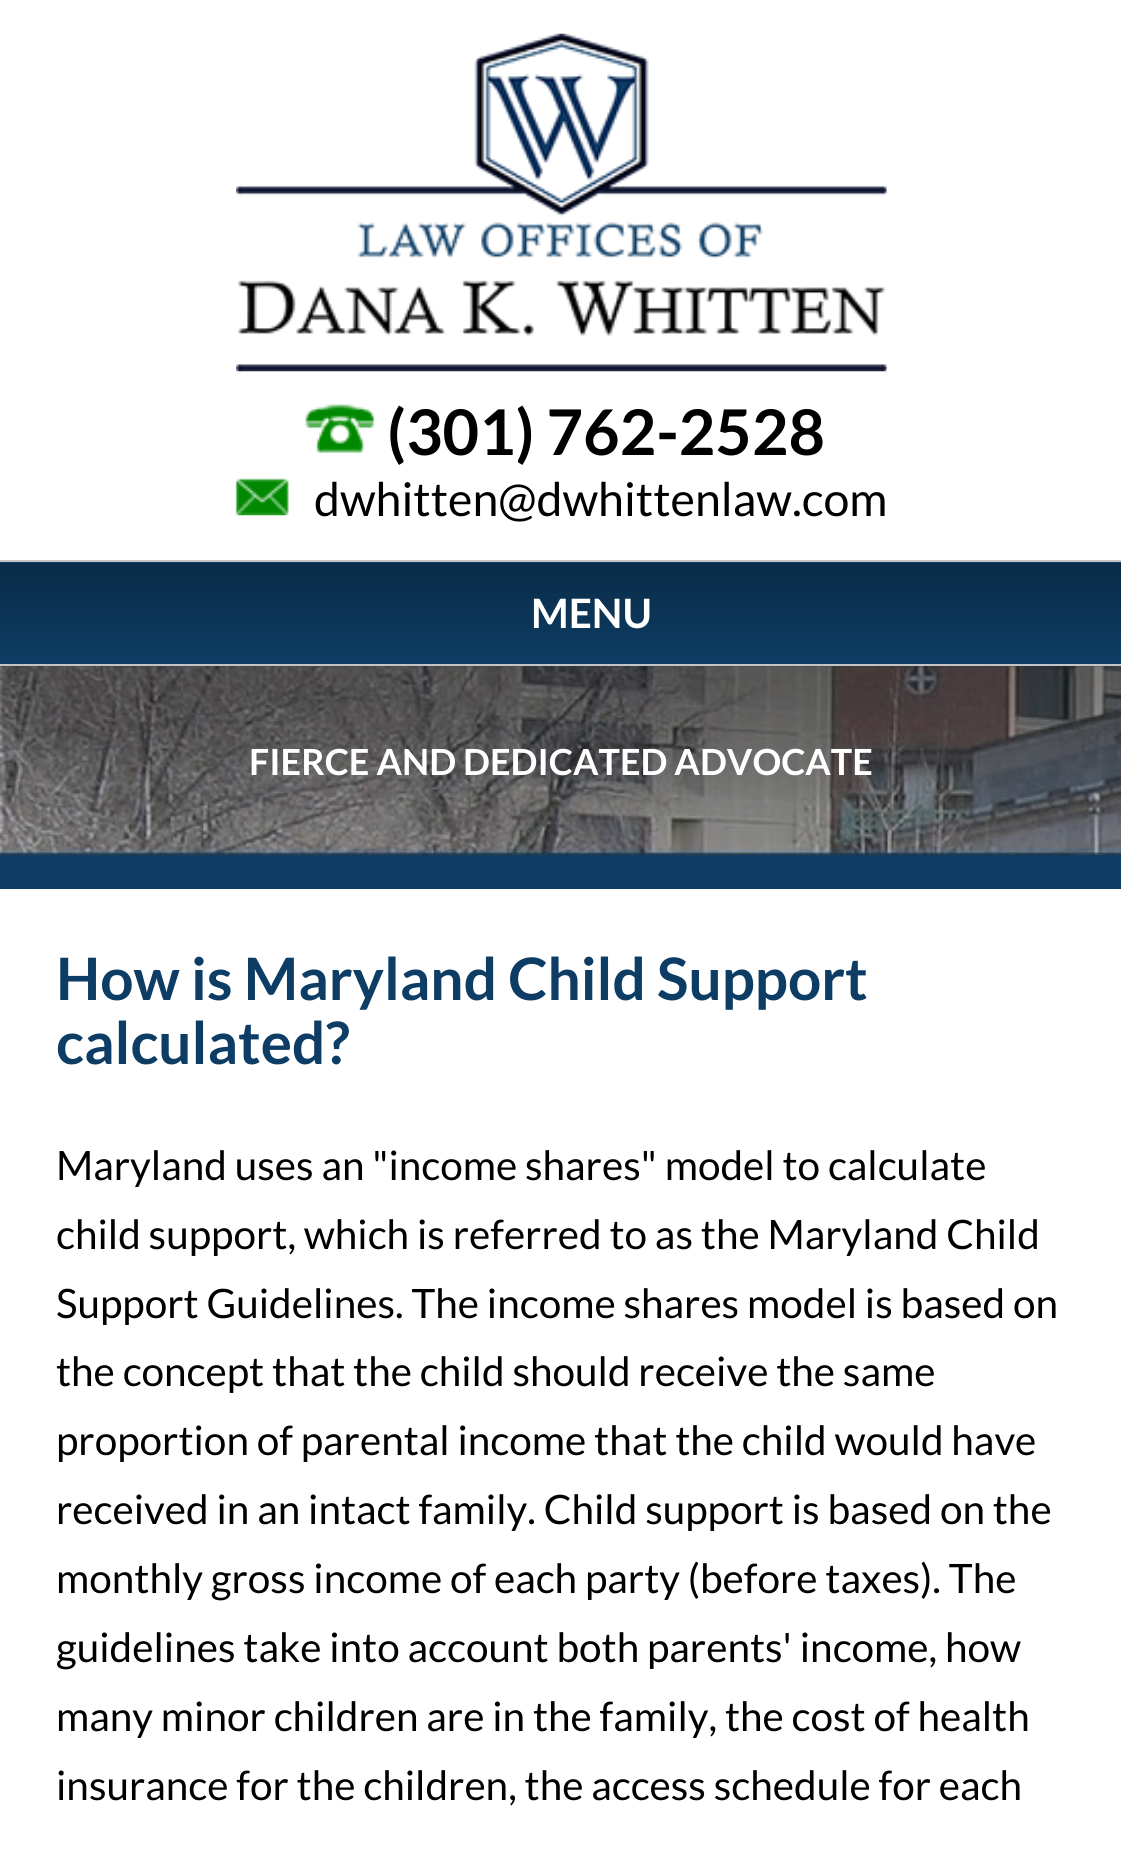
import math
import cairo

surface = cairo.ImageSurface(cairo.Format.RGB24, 1121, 1854)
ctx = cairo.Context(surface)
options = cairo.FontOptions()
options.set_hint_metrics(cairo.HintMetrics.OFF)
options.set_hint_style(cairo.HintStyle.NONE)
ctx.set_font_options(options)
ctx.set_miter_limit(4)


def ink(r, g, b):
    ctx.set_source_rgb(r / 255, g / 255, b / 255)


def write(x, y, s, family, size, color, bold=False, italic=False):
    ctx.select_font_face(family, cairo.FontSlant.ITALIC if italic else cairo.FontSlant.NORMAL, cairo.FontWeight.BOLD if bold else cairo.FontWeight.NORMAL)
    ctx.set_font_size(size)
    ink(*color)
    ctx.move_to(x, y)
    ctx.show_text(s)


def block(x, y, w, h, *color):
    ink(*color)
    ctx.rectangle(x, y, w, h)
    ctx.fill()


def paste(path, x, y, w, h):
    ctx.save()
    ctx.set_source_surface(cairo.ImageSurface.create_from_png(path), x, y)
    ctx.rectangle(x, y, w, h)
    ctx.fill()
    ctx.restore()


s1 = dict(family="Lato", size=63, color=(0, 0, 0), bold=True)
s2 = dict(family="Lato", size=46.5, color=(0, 0, 0))
s3 = dict(family="Lato", size=40.5, color=(255, 255, 255), bold=True)
s4 = dict(family="Lato", size=36, color=(255, 255, 255), bold=True)
s5 = dict(family="Lato", size=58.5, color=(13, 61, 101), bold=True)
s6 = dict(family="Lato", size=40.5, color=(0, 0, 0))

ink(255, 255, 255)
ctx.paint()
paste("pic1.png", 236, 33, 651, 339)
paste("pic2.png", 305, 404, 70, 49)
write(387, 455, "(301) 762-2528", **s1)
paste("pic3.png", 235, 478, 54, 38)
write(314, 516, "dwhitten@dwhittenlaw.com", **s2)
gradient = cairo.LinearGradient(561, 461, 561, 563)
gradient.add_color_stop_rgba(0, 0.035, 0.169, 0.278, 1)
gradient.add_color_stop_rgba(1, 0.051, 0.239, 0.396, 1)
ctx.set_source(gradient)
ctx.rectangle(0, 562, 1121, 1)
ctx.fill()
gradient = cairo.LinearGradient(561, 562, 561, 664)
gradient.add_color_stop_rgba(0, 0.035, 0.169, 0.278, 1)
gradient.add_color_stop_rgba(1, 0.051, 0.239, 0.396, 1)
ctx.set_source(gradient)
ctx.rectangle(0, 563, 1121, 101)
ctx.fill()
block(0, 560, 1121, 2, 197, 197, 197)
block(0, 664, 1121, 2, 197, 197, 197)
write(531, 628, "MENU", **s3)
paste("pic4.png", 0, 666, 1121, 189)
block(0, 855, 1121, 34, 13, 61, 101)
write(249, 775, "FIERCE AND DEDICATED ADVOCATE", **s4)
write(56, 1000, "How is Maryland Child Support", **s5)
write(56, 1064, "calculated?", **s5)
write(56, 1180, "Maryland uses an \"income shares\" model to calculate", **s6)
write(56, 1249, "child support, which is referred to as the Maryland Child", **s6)
write(56, 1318, "Support Guidelines. The income shares model is based on", **s6)
write(56, 1386, "the concept that the child should receive the same", **s6)
write(56, 1455, "proportion of parental income that the child would have", **s6)
write(56, 1524, "received in an intact family. Child support is based on the", **s6)
write(56, 1593, "monthly gross income of each party (before taxes). The", **s6)
write(56, 1662, "guidelines take into account both parents' income, how", **s6)
write(56, 1731, "many minor children are in the family, the cost of health", **s6)
write(56, 1800, "insurance for the children, the access schedule for each", **s6)
surface.write_to_png("screenshot.png")
